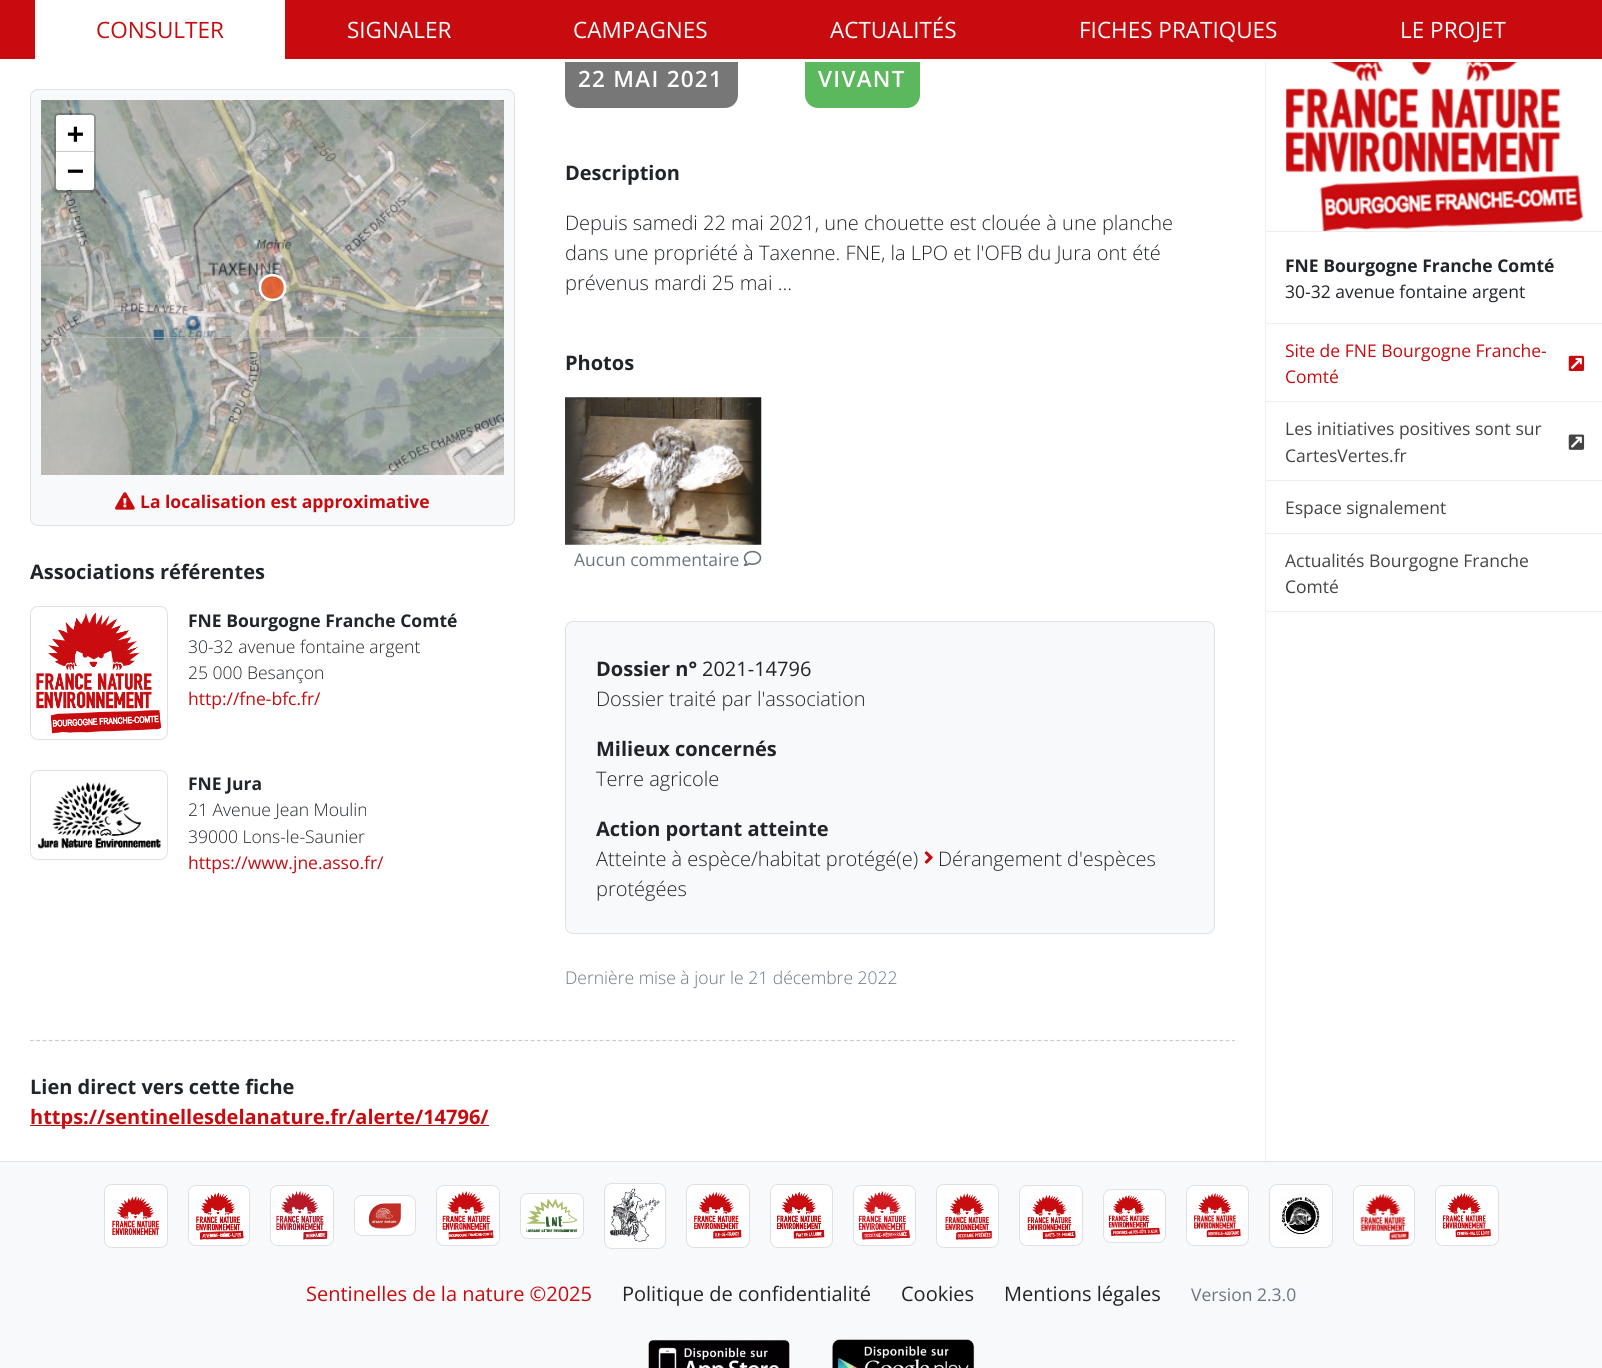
import math
import cairo

surface = cairo.ImageSurface(cairo.Format.RGB24, 1602, 1368)
ctx = cairo.Context(surface)
options = cairo.FontOptions()
options.set_hint_metrics(cairo.HintMetrics.OFF)
options.set_hint_style(cairo.HintStyle.NONE)
ctx.set_font_options(options)
ctx.set_miter_limit(4)


def ink(r, g, b):
    ctx.set_source_rgb(r / 255, g / 255, b / 255)


def write(x, y, s, family, size, color, bold=False, italic=False):
    ctx.select_font_face(family, cairo.FontSlant.ITALIC if italic else cairo.FontSlant.NORMAL, cairo.FontWeight.BOLD if bold else cairo.FontWeight.NORMAL)
    ctx.set_font_size(size)
    ink(*color)
    ctx.move_to(x, y)
    ctx.show_text(s)


def write_spaced(x, y, s, letter, word):
    ctx.move_to(x, y)
    for ch in s:
        ctx.show_text(ch)
        ctx.rel_move_to(letter + word * (ch == ' '), 0)


def block(x, y, w, h, *color):
    ink(*color)
    ctx.rectangle(x, y, w, h)
    ctx.fill()


def round_path(x, y, w, h, r):
    ctx.new_sub_path()
    for i, (u, v) in enumerate([(x + w - r, y + h - r), (x + r, y + h - r), (x + r, y + r), (x + w - r, y + r)]):
        ctx.arc(u, v, r, i * math.pi / 2, (i + 1) * math.pi / 2)
    ctx.close_path()


def paste(path, x, y, w, h):
    ctx.save()
    ctx.set_source_surface(cairo.ImageSurface.create_from_png(path), x, y)
    ctx.rectangle(x, y, w, h)
    ctx.fill()
    ctx.restore()


s1 = dict(family="Open Sans", size=22.5, color=(200, 11, 14))
s2 = dict(family="Open Sans", size=22.5, color=(255, 255, 255))
s3 = dict(family="DejaVu Sans Mono", size=28, color=(0, 0, 0), bold=True)
s4 = dict(family="Open Sans", size=17.5, color=(200, 11, 14), bold=True)
s5 = dict(family="Open Sans", size=20, color=(33, 37, 41), bold=True)
s6 = dict(family="Open Sans", size=17.5, color=(33, 37, 41), bold=True)
s7 = dict(family="Open Sans Light", size=17.5, color=(33, 37, 41))
s8 = dict(family="Open Sans", size=17.5, color=(200, 11, 14))
s9 = dict(family="Open Sans Light", size=20, color=(33, 37, 41))
s10 = dict(family="Open Sans", size=17.5, color=(108, 117, 125))
s11 = dict(family="Open Sans", size=20, color=(33, 37, 41))
s12 = dict(family="Open Sans Light", size=17.5, color=(108, 117, 125))
s13 = dict(family="Open Sans", size=20, color=(200, 11, 14), bold=True)
s14 = dict(family="Open Sans", size=17.5, color=(33, 37, 41))
s15 = dict(family="Open Sans", size=17.5, color=(68, 68, 68))
s16 = dict(family="Open Sans", size=20, color=(200, 11, 14))

ink(255, 255, 255)
ctx.paint()
ink(119, 119, 119)
round_path(565, 49, 173, 59, 13)
ctx.fill()
ink(92, 184, 92)
round_path(805, 49, 115, 59, 13)
ctx.fill()
block(0, 0, 1602, 59, 200, 11, 14)
block(565, 59, 355, 3, 255, 255, 255)
block(35, 0, 250, 59, 255, 255, 255)
write(96, 38, "CONSULTER", **s1)
write(347, 38, "SIGNALER", **s2)
write(573, 38, "CAMPAGNES", **s2)
write(830, 38, "ACTUALITÉS", **s2)
write(1079, 38, "FICHES PRATIQUES", **s2)
write(1400, 38, "LE PROJET", **s2)
ink(248, 249, 250)
round_path(30.5, 89.5, 484, 436, 7.5)
ctx.fill_preserve()
ink(222, 226, 230)
ctx.set_line_width(1)
ctx.stroke()
block(41, 337, 463, 1, 204, 204, 204)
paste("pic1.png", 41, 100, 193, 238)
paste("pic2.png", 234, 100, 270, 238)
paste("pic3.png", 41, 338, 193, 137)
paste("pic4.png", 234, 338, 270, 137)
paste("pic5.png", 41, 100, 193, 238)
paste("pic6.png", 234, 100, 270, 238)
paste("pic7.png", 41, 338, 193, 137)
paste("pic8.png", 234, 338, 270, 137)
ctx.set_source_rgba(0.91, 0.325, 0.118, 0.8)
ctx.set_fill_rule(cairo.FillRule.EVEN_ODD)
ctx.new_path()
ctx.move_to(260, 287.5)
ctx.curve_to(260, 304, 285, 304, 285, 287.5)
ctx.curve_to(285, 271, 260, 271, 260, 287.5)
ctx.fill_preserve()
ink(255, 255, 255)
ctx.set_line_width(2.5)
ctx.set_line_cap(cairo.LineCap.ROUND)
ctx.set_line_join(cairo.LineJoin.ROUND)
ctx.stroke()
round_path(55.5, 114.5, 39, 77, 3.5)
ctx.set_source_rgba(0, 0, 0, 0.2)
ctx.set_line_width(3)
ctx.set_line_cap(cairo.LineCap.BUTT)
ctx.set_line_join(cairo.LineJoin.MITER)
ctx.stroke()
ink(255, 255, 255)
ctx.new_path()
ctx.move_to(58.5, 115)
ctx.line_to(91.5, 115)
ctx.curve_to(93, 115, 94, 116, 94, 117.5)
ctx.line_to(94, 153)
ctx.line_to(56, 153)
ctx.line_to(56, 117.5)
ctx.curve_to(56, 116, 57, 115, 58.5, 115)
ctx.close_path()
ctx.fill()
block(56, 151, 38, 1, 204, 204, 204)
write(67, 143, "+", **s3)
ink(255, 255, 255)
ctx.new_path()
ctx.move_to(56, 153)
ctx.line_to(94, 153)
ctx.line_to(94, 187.5)
ctx.curve_to(94, 189, 93, 190, 91.5, 190)
ctx.line_to(58.5, 190)
ctx.curve_to(57, 190, 56, 189, 56, 187.5)
ctx.close_path()
ctx.fill()
write(67, 180, "−", **s3)
paste("pic9.png", 115, 492, 20, 18)
write(140, 508, "La localisation est approximative", **s4)
write(30, 579, "Associations référentes", **s5)
round_path(30.5, 606.5, 137, 133, 7.5)
ink(222, 226, 230)
ctx.set_line_width(1)
ctx.stroke()
paste("pic10.png", 36, 612, 126, 122)
write(188, 627, "FNE Bourgogne Franche Comté", **s6)
write(188, 653, "30-32 avenue fontaine argent", **s7)
write(188, 679, "25 000 Besançon", **s7)
write(188, 705, "http://fne-bfc.fr/", **s8)
round_path(30.5, 770.5, 137, 89, 7.5)
ink(222, 226, 230)
ctx.stroke()
paste("pic11.png", 38, 782, 123, 67)
write(188, 790, "FNE Jura", **s6)
write(188, 816, "21 Avenue Jean Moulin", **s7)
write(188, 843, "39000 Lons-le-Saunier", **s7)
write(188, 869, "https://www.jne.asso.fr/", **s8)
ctx.select_font_face("Open Sans SemiBold")
ctx.set_font_size(22.5)
ink(255, 255, 255)
write_spaced(578, 87, "22 MAI 2021", 1.25, 0)
write_spaced(818, 87, "VIVANT", 1.25, 0)
write(565, 180, "Description", **s5)
write(565, 230, "Depuis samedi 22 mai 2021, une chouette est clouée à une planche", **s9)
write(565, 260, "dans une propriété à Taxenne. FNE, la LPO et l'OFB du Jura ont été", **s9)
write(565, 290, "prévenus mardi 25 mai ...", **s9)
write(565, 370, "Photos", **s5)
paste("pic12.png", 565, 397, 197, 148)
write(574, 566, "Aucun commentaire", **s10)
paste("pic13.png", 743, 550, 19, 17)
ink(248, 249, 250)
round_path(565.5, 621.5, 649, 312, 7.5)
ctx.fill_preserve()
ink(222, 226, 230)
ctx.stroke()
write(596, 676, "Dossier n°", **s5)
write(702, 676, "2021-14796", **s11)
write(596, 706, "Dossier traité par l'association", **s9)
write(596, 756, "Milieux concernés", **s5)
write(596, 786, "Terre agricole", **s9)
write(596, 836, "Action portant atteinte", **s5)
write(596, 866, "Atteinte à espèce/habitat protégé(e)", **s9)
paste("pic14.png", 924, 851, 9, 13)
write(938, 866, "Dérangement d'espèces", **s9)
write(596, 896, "protégées", **s9)
write(565, 984, "Dernière mise à jour le 21 décembre 2022", **s12)
ctx.new_path()
ctx.move_to(30, 1040.5)
ctx.line_to(1235, 1040.5)
ink(204, 204, 204)
ctx.set_line_width(1.2)
ctx.set_dash([3.75, 2.51])
ctx.stroke()
write(30, 1094, "Lien direct vers cette fiche", **s5)
block(30, 1125, 459, 1, 200, 11, 14)
write(30, 1124, "https://sentinellesdelanature.fr/alerte/14796/", **s13)
block(1265, 62, 1, 1099, 238, 238, 238)
paste("pic15.png", 1286, 62, 297, 169)
block(1266, 231, 336, 1, 238, 238, 238)
write(1285, 272, "FNE Bourgogne Franche Comté", **s6)
write(1285, 298, "30-32 avenue fontaine argent", **s14)
block(1266, 611, 336, 1, 238, 238, 238)
block(1266, 323, 336, 1, 238, 238, 238)
write(1285, 357, "Site de FNE Bourgogne Franche-", **s8)
write(1285, 383, "Comté", **s8)
paste("pic16.png", 1568, 355, 17, 17)
block(1266, 401, 336, 1, 238, 238, 238)
write(1285, 435, "Les initiatives positives sont sur", **s15)
write(1285, 462, "CartesVertes.fr", **s15)
paste("pic17.png", 1568, 434, 17, 16)
block(1266, 480, 336, 1, 238, 238, 238)
write(1285, 514, "Espace signalement", **s15)
block(1266, 533, 336, 1, 238, 238, 238)
write(1285, 567, "Actualités Bourgogne Franche", **s15)
write(1285, 593, "Comté", **s15)
block(0, 1162, 1602, 206, 248, 249, 250)
block(0, 1161, 1602, 1, 222, 226, 230)
ink(255, 255, 255)
round_path(104.5, 1184.5, 63, 63, 7.5)
ctx.fill_preserve()
ink(222, 226, 230)
ctx.set_line_width(1)
ctx.set_dash([])
ctx.stroke()
paste("pic18.png", 112, 1196, 47, 40)
ink(255, 255, 255)
round_path(188.5, 1185.5, 61, 60, 7.5)
ctx.fill_preserve()
ink(222, 226, 230)
ctx.stroke()
paste("pic19.png", 196, 1192, 48, 48)
ink(255, 255, 255)
round_path(270.5, 1185.5, 63, 60, 7.5)
ctx.fill_preserve()
ink(222, 226, 230)
ctx.stroke()
paste("pic20.png", 276, 1191, 52, 49)
ink(255, 255, 255)
round_path(354.5, 1195.5, 61, 40, 7.5)
ctx.fill_preserve()
ink(222, 226, 230)
ctx.stroke()
paste("pic21.png", 368, 1203, 33, 26)
ink(255, 255, 255)
round_path(436.5, 1185.5, 63, 60, 7.5)
ctx.fill_preserve()
ink(222, 226, 230)
ctx.stroke()
paste("pic22.png", 442, 1191, 52, 49)
ink(255, 255, 255)
round_path(520.5, 1193.5, 63, 45, 7.5)
ctx.fill_preserve()
ink(222, 226, 230)
ctx.stroke()
paste("pic23.png", 526, 1198, 52, 35)
ink(255, 255, 255)
round_path(604.5, 1183.5, 61, 65, 7.5)
ctx.fill_preserve()
ink(222, 226, 230)
ctx.stroke()
paste("pic24.png", 610, 1188, 50, 55)
ink(255, 255, 255)
round_path(686.5, 1184.5, 63, 63, 7.5)
ctx.fill_preserve()
ink(222, 226, 230)
ctx.stroke()
paste("pic25.png", 694, 1192, 48, 47)
ink(255, 255, 255)
round_path(770.5, 1184.5, 62, 63, 7.5)
ctx.fill_preserve()
ink(222, 226, 230)
ctx.stroke()
paste("pic26.png", 777, 1192, 48, 47)
ink(255, 255, 255)
round_path(853.5, 1185.5, 62, 60, 7.5)
ctx.fill_preserve()
ink(222, 226, 230)
ctx.stroke()
paste("pic27.png", 858, 1191, 52, 49)
ink(255, 255, 255)
round_path(936.5, 1184.5, 62, 63, 7.5)
ctx.fill_preserve()
ink(222, 226, 230)
ctx.stroke()
paste("pic28.png", 945, 1193, 47, 47)
ink(255, 255, 255)
round_path(1019.5, 1185.5, 63, 60, 7.5)
ctx.fill_preserve()
ink(222, 226, 230)
ctx.stroke()
paste("pic29.png", 1027, 1194, 49, 45)
ink(255, 255, 255)
round_path(1103.5, 1189.5, 62, 53, 7.5)
ctx.fill_preserve()
ink(222, 226, 230)
ctx.stroke()
paste("pic30.png", 1108, 1194, 52, 42)
ink(255, 255, 255)
round_path(1186.5, 1185.5, 62, 60, 7.5)
ctx.fill_preserve()
ink(222, 226, 230)
ctx.stroke()
paste("pic31.png", 1194, 1193, 47, 45)
ink(255, 255, 255)
round_path(1269.5, 1184.5, 63, 63, 7.5)
ctx.fill_preserve()
ink(222, 226, 230)
ctx.stroke()
paste("pic32.png", 1281, 1197, 39, 38)
ink(255, 255, 255)
round_path(1353.5, 1185.5, 61, 60, 7.5)
ctx.fill_preserve()
ink(222, 226, 230)
ctx.stroke()
paste("pic33.png", 1360, 1193, 49, 47)
ink(255, 255, 255)
round_path(1435.5, 1185.5, 63, 60, 7.5)
ctx.fill_preserve()
ink(222, 226, 230)
ctx.stroke()
paste("pic34.png", 1443, 1193, 48, 45)
write(306, 1301, "Sentinelles de la nature ©2025", **s16)
write(622, 1301, "Politique de confidentialité", **s11)
write(901, 1301, "Cookies", **s11)
write(1004, 1301, "Mentions légales", **s11)
write(1191, 1301, "Version 2.3.0", **s10)
paste("pic35.png", 648, 1339, 142, 29)
paste("pic36.png", 832, 1339, 143, 29)
surface.write_to_png("screenshot.png")
